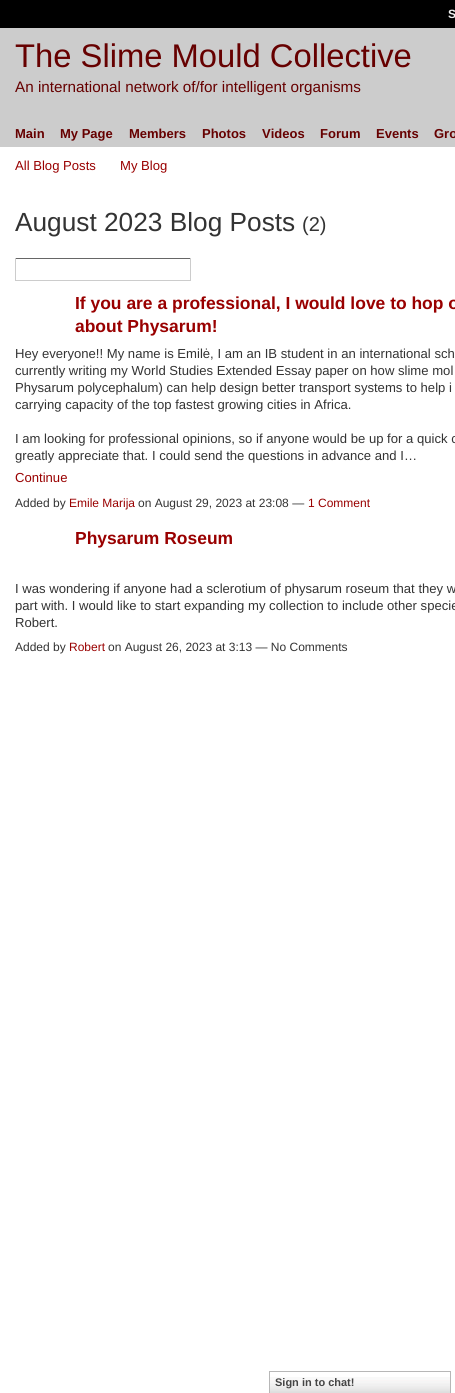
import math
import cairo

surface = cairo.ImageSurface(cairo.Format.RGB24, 455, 1393)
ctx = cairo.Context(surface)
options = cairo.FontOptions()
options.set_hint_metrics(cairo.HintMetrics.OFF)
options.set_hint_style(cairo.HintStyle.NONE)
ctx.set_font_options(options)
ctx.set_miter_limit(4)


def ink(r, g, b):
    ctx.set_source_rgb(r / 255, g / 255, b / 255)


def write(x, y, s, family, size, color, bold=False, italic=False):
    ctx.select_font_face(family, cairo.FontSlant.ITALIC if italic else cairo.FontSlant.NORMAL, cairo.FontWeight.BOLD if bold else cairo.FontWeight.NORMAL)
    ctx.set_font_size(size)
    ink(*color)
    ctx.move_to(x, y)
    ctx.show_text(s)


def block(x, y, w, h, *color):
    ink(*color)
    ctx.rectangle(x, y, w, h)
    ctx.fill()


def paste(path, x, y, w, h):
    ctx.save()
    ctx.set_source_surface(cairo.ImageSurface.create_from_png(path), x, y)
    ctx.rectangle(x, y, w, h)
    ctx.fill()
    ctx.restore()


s1 = dict(family="Liberation Sans", size=12, color=(238, 238, 238), bold=True)
s2 = dict(family="Liberation Sans", size=32.75, color=(102, 0, 0))
s3 = dict(family="Liberation Sans", size=15.25, color=(102, 0, 0))
s4 = dict(family="Liberation Sans", size=13, color=(102, 0, 0), bold=True)
s5 = dict(family="Liberation Sans", size=13.1, color=(153, 0, 0))
s6 = dict(family="Liberation Sans", size=26.25, color=(51, 51, 51))
s7 = dict(family="Liberation Sans", size=20, color=(51, 51, 51))
s8 = dict(family="Liberation Sans", size=17.45, color=(153, 0, 0), bold=True)
s9 = dict(family="Liberation Sans", size=13.1, color=(51, 51, 51))
s10 = dict(family="Liberation Sans", size=12, color=(51, 51, 51))
s11 = dict(family="Liberation Sans", size=12, color=(153, 0, 0))
s12 = dict(family="Liberation Sans", size=11, color=(69, 69, 69), bold=True)

ink(0, 0, 0)
ctx.paint()
write(448, 18, "S", **s1)
block(0, 28, 455, 119, 204, 204, 204)
write(15, 67, "The Slime Mould Collective", **s2)
write(15, 92, "An international network of/for intelligent organisms", **s3)
write(15, 138, "Main", **s4)
write(60, 138, "My Page", **s4)
write(129, 138, "Members", **s4)
write(202, 138, "Photos", **s4)
write(262, 138, "Videos", **s4)
write(320, 138, "Forum", **s4)
write(376, 138, "Events", **s4)
write(434, 138, "Gro", **s4)
block(0, 147, 455, 1246, 255, 255, 255)
write(15, 170, "All Blog Posts", **s5)
write(120, 170, "My Blog", **s5)
write(15, 231, "August 2023 Blog Posts", **s6)
write(302, 231, "(2)", **s7)
block(15, 258, 176, 1, 102, 102, 102)
block(190, 258, 1, 23, 204, 204, 204)
block(15, 280, 176, 1, 204, 204, 204)
block(15, 258, 1, 23, 204, 204, 204)
write(75, 309, "If you are a professional, I would love to hop o", **s8)
write(75, 332, "about Physarum!", **s8)
write(15, 358, "Hey everyone!! My name is Emilė, I am an IB student in an international sch", **s9)
write(15, 375, "currently writing my World Studies Extended Essay paper on how slime mol", **s9)
write(15, 392, "Physarum polycephalum) can help design better transport systems to help i", **s9)
write(15, 409, "carrying capacity of the top fastest growing cities in Africa.", **s9)
write(15, 443, "I am looking for professional opinions, so if anyone would be up for a quick c", **s9)
write(15, 460, "greatly appreciate that. I could send the questions in advance and I…", **s9)
write(15, 482, "Continue", **s5)
write(15, 507, "Added by", **s10)
write(69, 507, "Emile Marija", **s11)
write(138, 507, "on August 29, 2023 at 23:08 —", **s10)
write(308, 507, "1 Comment", **s11)
write(75, 544, "Physarum Roseum", **s8)
write(15, 593, "I was wondering if anyone had a sclerotium of physarum roseum that they w", **s9)
write(15, 610, "part with. I would like to start expanding my collection to include other specie", **s9)
write(15, 627, "Robert.", **s9)
write(15, 651, "Added by", **s10)
write(69, 651, "Robert", **s11)
write(108, 651, "on August 26, 2023 at 3:13 — No Comments", **s10)
paste("pic1.png", 270, 1377, 180, 16)
ctx.rectangle(269.5, 1371.5, 181, 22)
ink(183, 183, 183)
ctx.set_line_width(1)
ctx.stroke()
write(275, 1386, "Sign in to chat!", **s12)
surface.write_to_png("screenshot.png")
